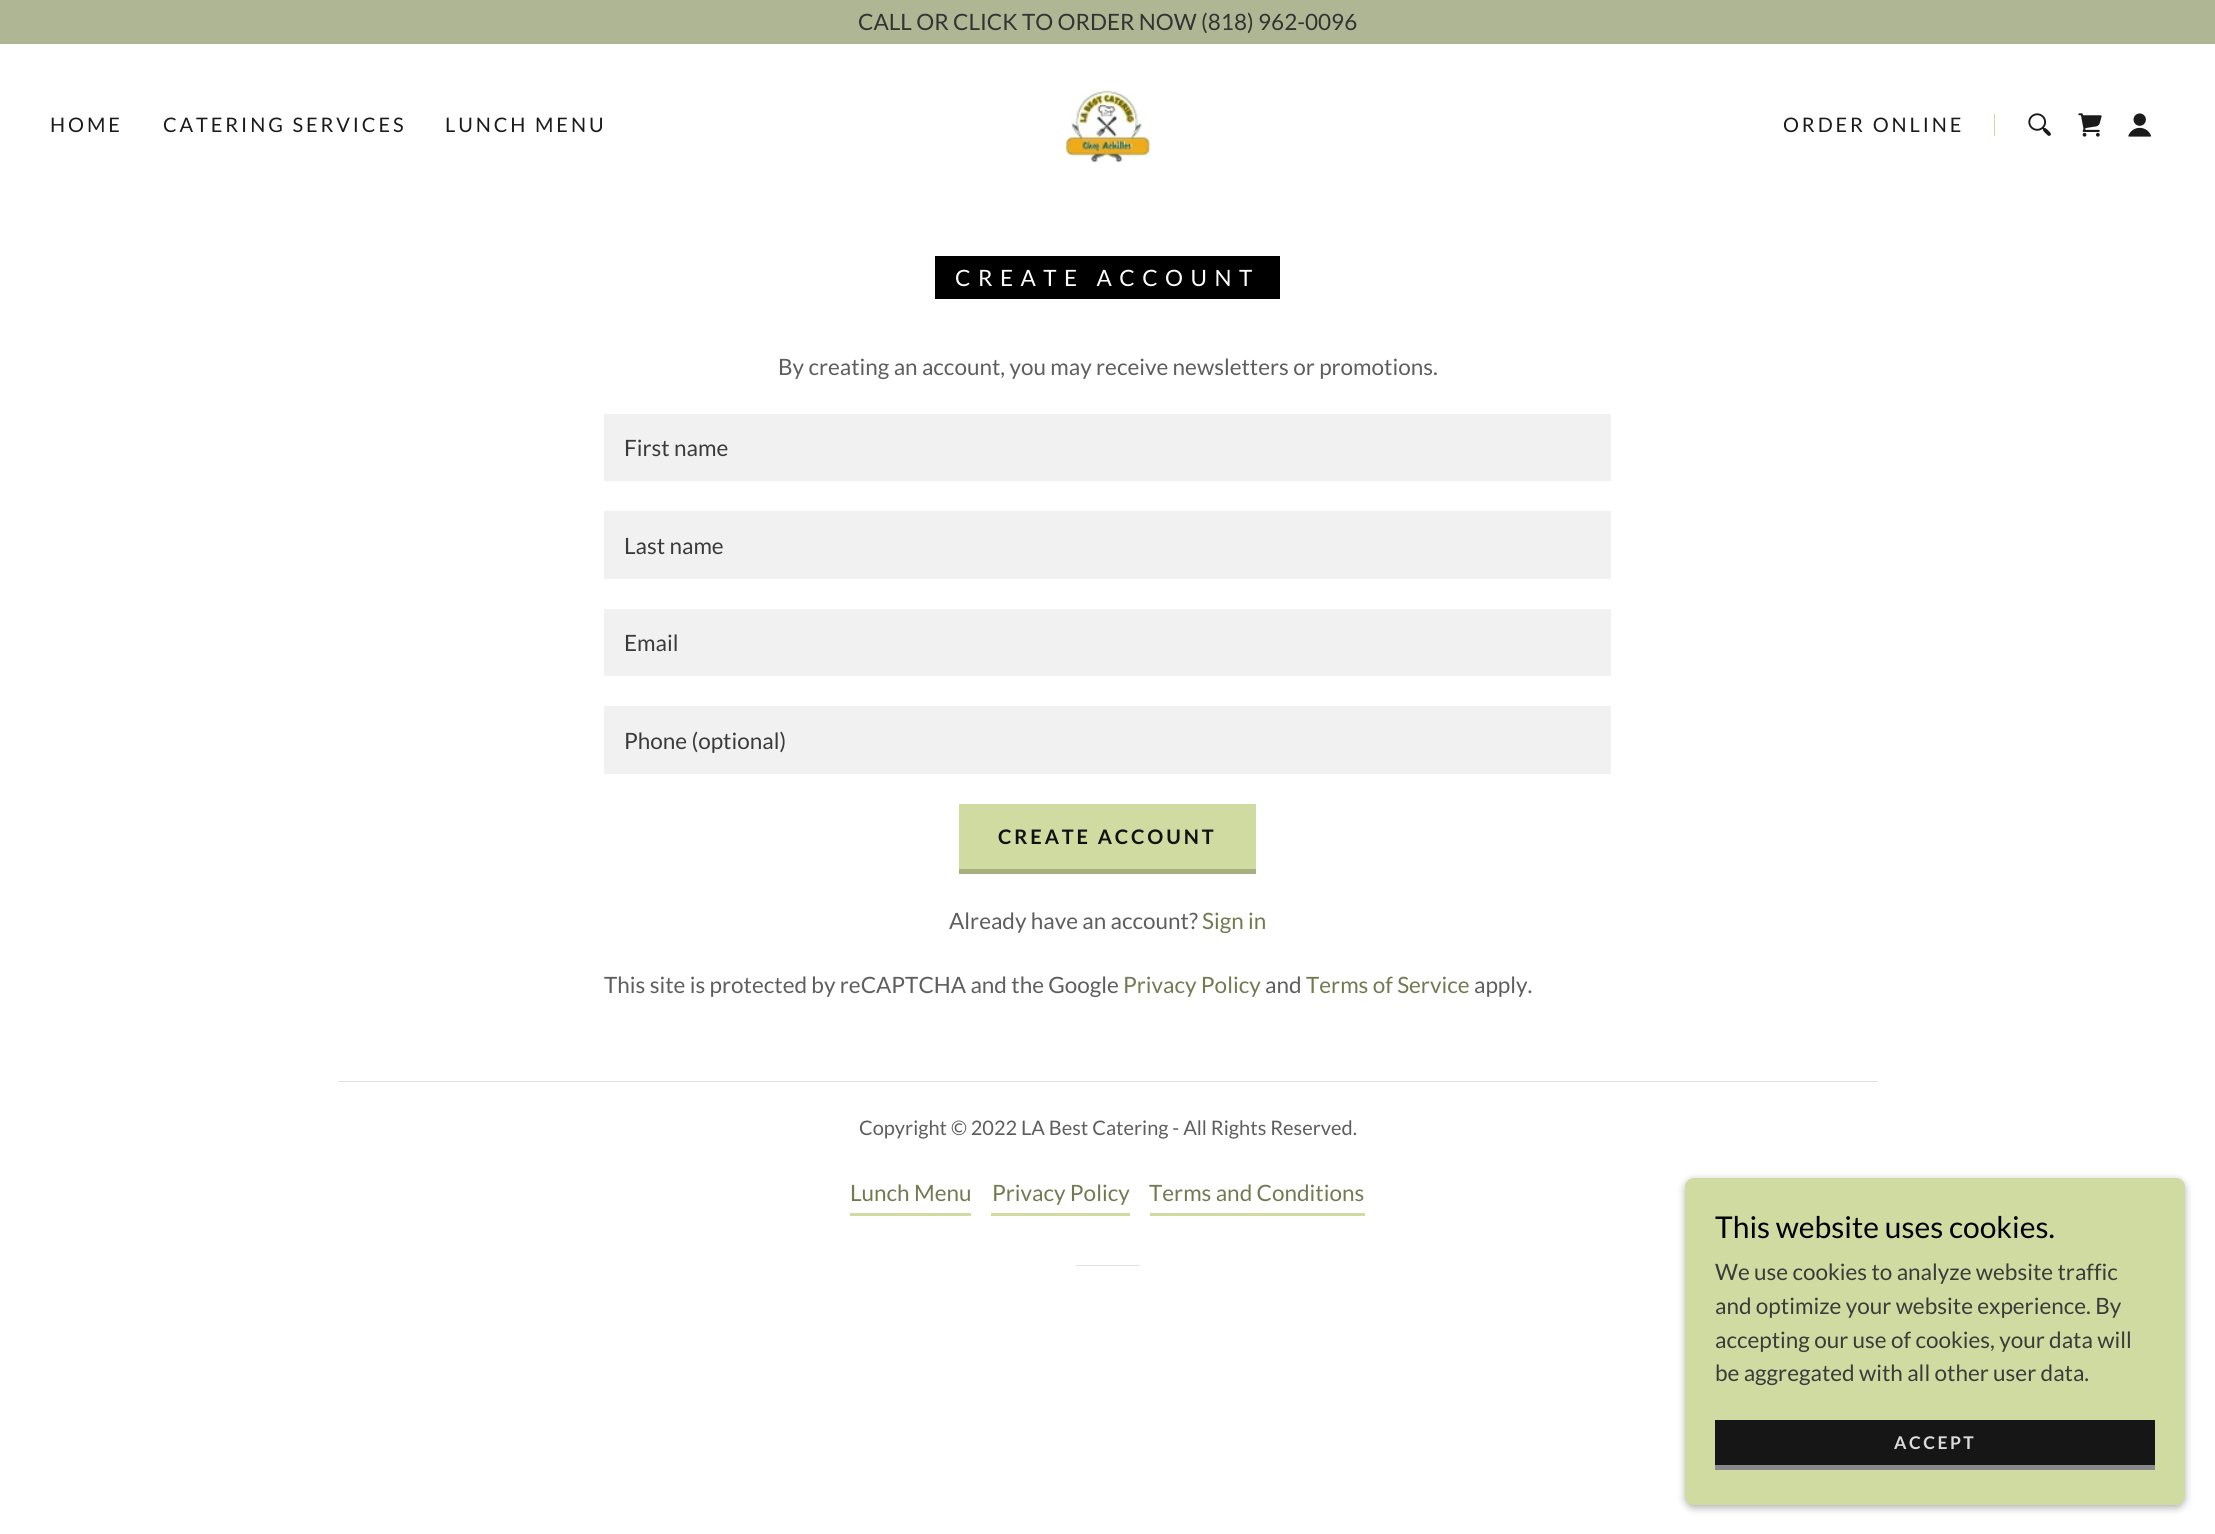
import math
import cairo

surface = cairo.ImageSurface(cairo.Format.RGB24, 2215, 1534)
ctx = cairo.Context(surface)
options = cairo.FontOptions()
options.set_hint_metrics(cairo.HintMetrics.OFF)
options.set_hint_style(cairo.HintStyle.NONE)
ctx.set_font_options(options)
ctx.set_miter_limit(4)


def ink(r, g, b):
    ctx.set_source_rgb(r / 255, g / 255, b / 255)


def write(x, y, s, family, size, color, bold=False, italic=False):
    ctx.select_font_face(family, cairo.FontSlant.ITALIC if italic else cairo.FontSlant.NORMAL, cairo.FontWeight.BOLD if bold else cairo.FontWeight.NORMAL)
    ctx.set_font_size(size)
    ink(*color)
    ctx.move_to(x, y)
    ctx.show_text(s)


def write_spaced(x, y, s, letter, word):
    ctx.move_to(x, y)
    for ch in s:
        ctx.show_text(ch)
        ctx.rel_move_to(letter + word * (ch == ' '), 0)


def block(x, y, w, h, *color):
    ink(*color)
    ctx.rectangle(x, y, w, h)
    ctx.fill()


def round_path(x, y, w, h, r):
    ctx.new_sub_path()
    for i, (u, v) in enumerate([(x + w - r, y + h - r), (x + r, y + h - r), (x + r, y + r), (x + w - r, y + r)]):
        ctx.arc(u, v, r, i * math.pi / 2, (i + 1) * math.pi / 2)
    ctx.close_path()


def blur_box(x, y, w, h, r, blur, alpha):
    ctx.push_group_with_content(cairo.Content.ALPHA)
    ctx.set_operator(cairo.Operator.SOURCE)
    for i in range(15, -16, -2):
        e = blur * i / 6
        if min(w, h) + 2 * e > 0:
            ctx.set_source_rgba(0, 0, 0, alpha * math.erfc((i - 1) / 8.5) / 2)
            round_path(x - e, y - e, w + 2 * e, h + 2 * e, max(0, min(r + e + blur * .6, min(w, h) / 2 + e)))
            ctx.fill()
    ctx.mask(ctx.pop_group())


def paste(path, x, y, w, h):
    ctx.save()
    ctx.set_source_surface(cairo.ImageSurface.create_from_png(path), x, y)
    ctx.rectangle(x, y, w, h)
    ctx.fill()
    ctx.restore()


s1 = dict(family="Lato", size=22.5, color=(51, 51, 51))
s2 = dict(family="Lato", size=22.5, color=(94, 94, 94))
s3 = dict(family="Lato", size=22.5, color=(59, 59, 59))
s4 = dict(family="Lato", size=22.5, color=(114, 122, 82))
s5 = dict(family="Lato", size=20, color=(94, 94, 94))
s6 = dict(family="Lato", size=30, color=(0, 0, 0))

ink(255, 255, 255)
ctx.paint()
block(0, 0, 2215, 44, 175, 182, 147)
write(858, 30, "CALL OR CLICK TO ORDER NOW (818) 962-0096", **s1)
ctx.set_font_size(20)
ink(27, 27, 27)
write_spaced(50, 132, "HOME", 2.9, 0)
write_spaced(163, 132, "CATERING SERVICES", 2.9, 0)
write_spaced(445, 132, "LUNCH MENU", 2.9, 0)
paste("pic1.png", 1065, 90, 86, 73)
write_spaced(1783, 132, "ORDER ONLINE", 2.9, 0)
block(1994, 114, 1, 22, 207, 219, 160)
paste("pic2.png", 2028, 113, 23, 23)
paste("pic3.png", 2078, 113, 24, 24)
paste("pic4.png", 2128, 113, 24, 24)
block(935, 256, 345, 43, 0, 0, 0)
ctx.set_font_size(22.5)
ink(255, 255, 255)
write_spaced(955, 286, "CREATE ACCOUNT", 7.5, 0)
write(778, 375, "By creating an account, you may receive newsletters or promotions.", **s2)
block(604, 414, 1007, 67, 241, 241, 241)
write(624, 456, "First name", **s3)
block(604, 511, 1007, 68, 241, 241, 241)
write(624, 554, "Last name", **s3)
block(604, 609, 1007, 67, 241, 241, 241)
write(624, 651, "Email", **s3)
block(604, 706, 1007, 68, 241, 241, 241)
write(624, 749, "Phone (optional)", **s3)
block(959, 804, 297, 65, 207, 219, 160)
block(959, 869, 297, 5, 167, 177, 128)
ctx.select_font_face("Lato", cairo.FontSlant.NORMAL, cairo.FontWeight.BOLD)
ctx.set_font_size(20)
ink(17, 17, 17)
write_spaced(998, 844, "CREATE ACCOUNT", 2.9, 0)
write(949, 929, "Already have an account?", **s2)
write(1202, 929, "Sign in", **s4)
write(604, 993, "This site is protected by reCAPTCHA and the Google", **s2)
write(1123, 993, "Privacy Policy", **s4)
write(1265, 993, "and", **s2)
write(1306, 993, "Terms of Service", **s4)
write(1474, 993, "apply.", **s2)
block(338, 1081, 1540, 1, 226, 226, 226)
write(859, 1135, "Copyright © 2022 LA Best Catering - All Rights Reserved.", **s5)
block(850, 1213, 121, 3, 207, 219, 160)
write(850, 1201, "Lunch Menu", **s4)
block(991, 1213, 139, 3, 207, 219, 160)
write(992, 1201, "Privacy Policy", **s4)
block(1150, 1213, 215, 3, 207, 219, 160)
write(1149, 1201, "Terms and Conditions", **s4)
block(1076, 1265, 63, 1, 226, 226, 226)
ink(0, 0, 0)
blur_box(1685, 1180, 500, 328, 9, 4, 0.3)
ink(207, 219, 160)
round_path(1685, 1178, 500, 327, 9)
ctx.fill()
write(1715, 1238, "This website uses cookies.", **s6)
write(1715, 1280, "We use cookies to analyze website traffic", **s3)
write(1715, 1314, "and optimize your website experience. By", **s3)
write(1715, 1348, "accepting our use of cookies, your data will", **s3)
write(1715, 1381, "be aggregated with all other user data.", **s3)
block(1715, 1420, 440, 45, 22, 22, 22)
block(1715, 1465, 440, 5, 137, 137, 137)
ctx.select_font_face("Lato", cairo.FontSlant.NORMAL, cairo.FontWeight.BOLD)
ctx.set_font_size(17.5)
ink(219, 219, 219)
write_spaced(1894, 1449, "ACCEPT", 2.5, 0)
surface.write_to_png("screenshot.png")
